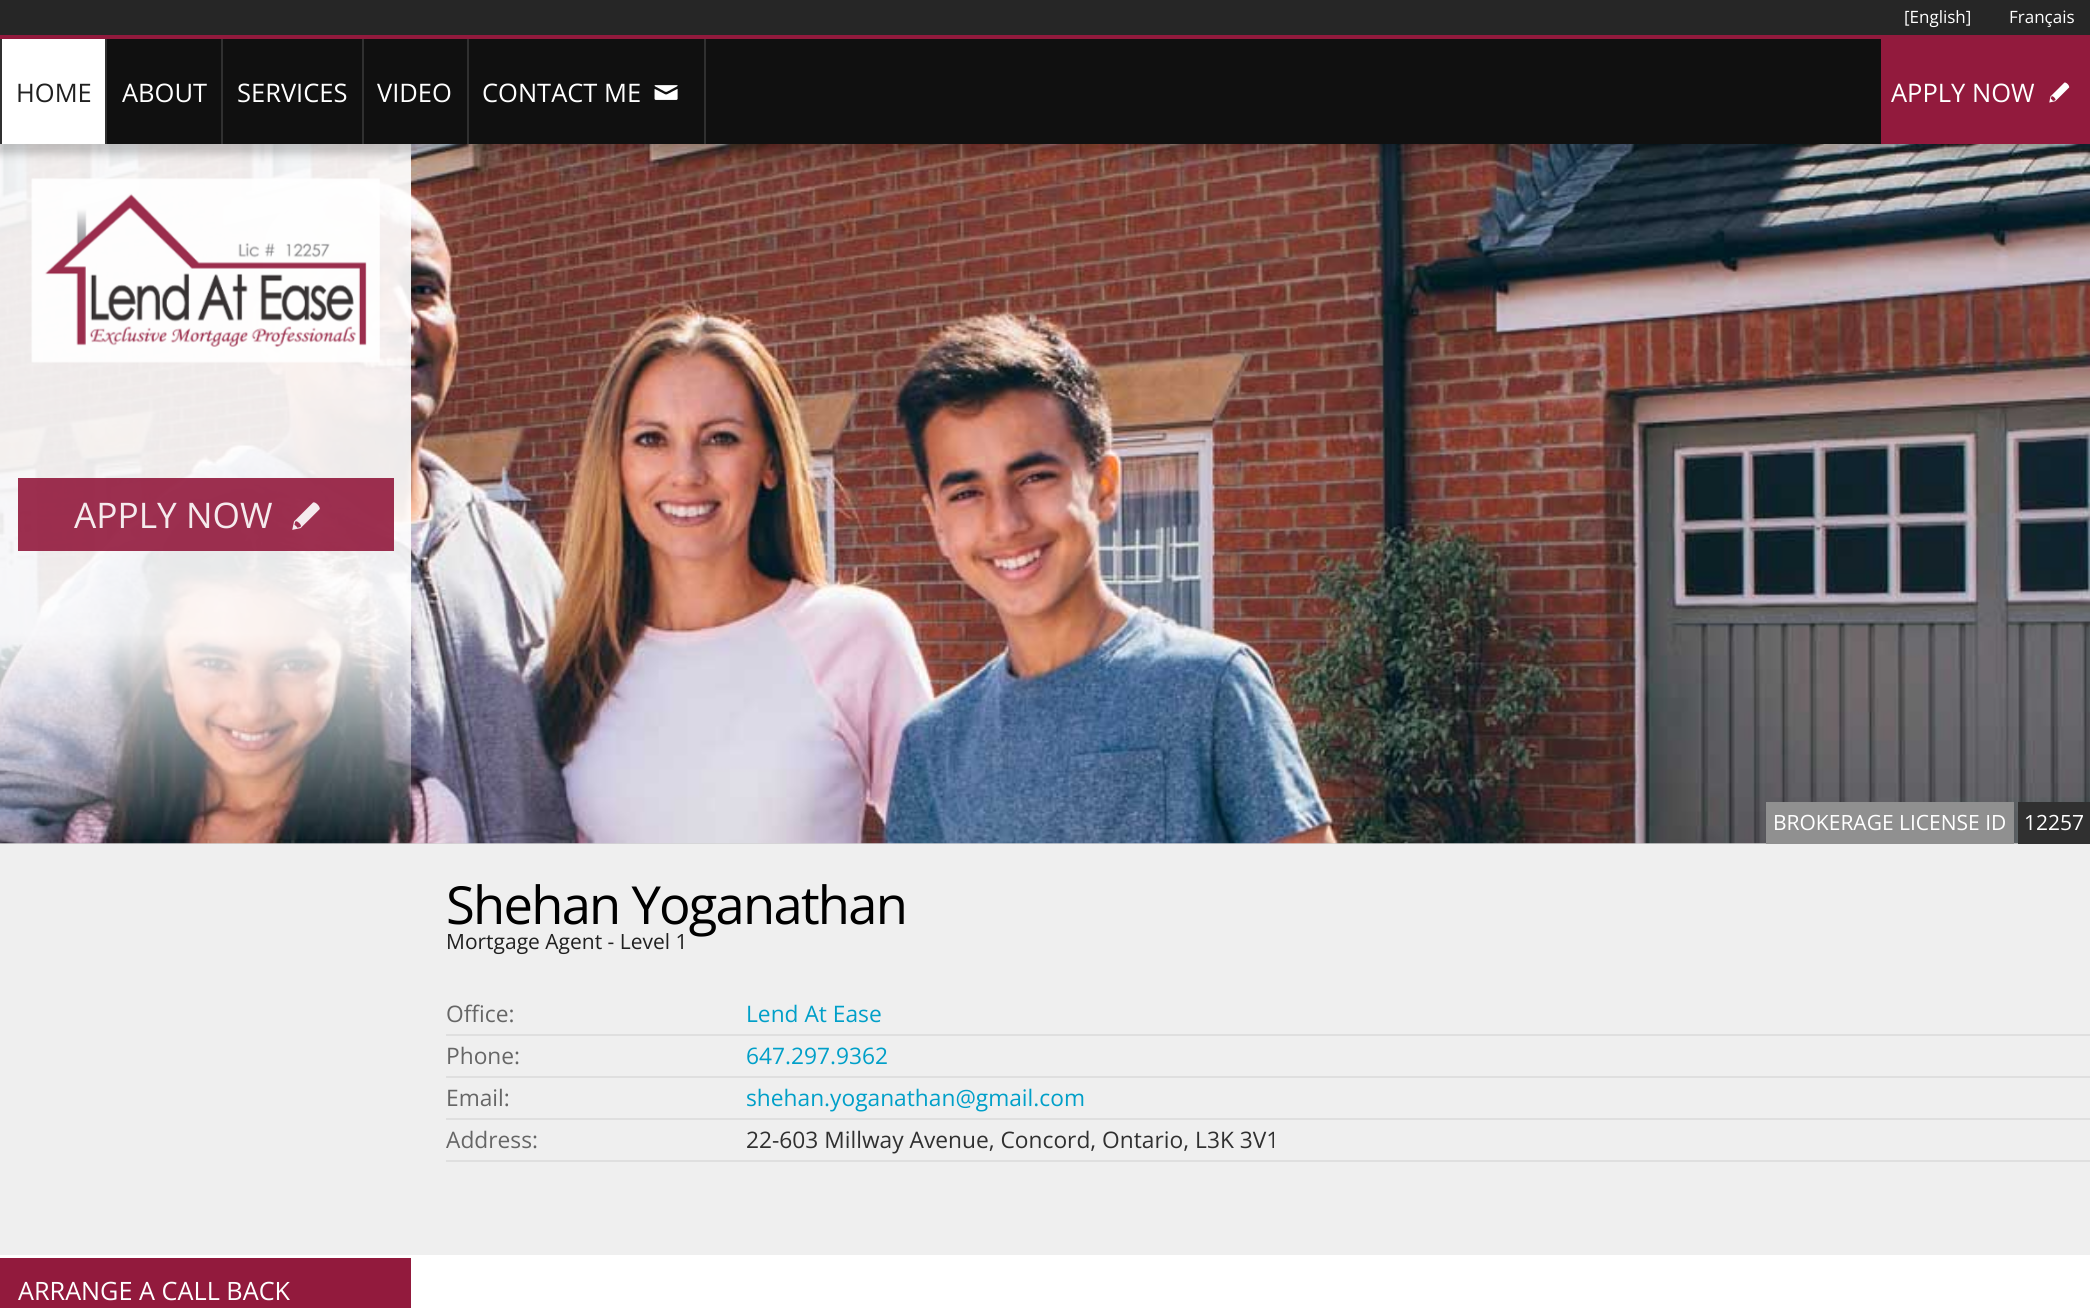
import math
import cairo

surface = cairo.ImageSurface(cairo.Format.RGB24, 2090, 1308)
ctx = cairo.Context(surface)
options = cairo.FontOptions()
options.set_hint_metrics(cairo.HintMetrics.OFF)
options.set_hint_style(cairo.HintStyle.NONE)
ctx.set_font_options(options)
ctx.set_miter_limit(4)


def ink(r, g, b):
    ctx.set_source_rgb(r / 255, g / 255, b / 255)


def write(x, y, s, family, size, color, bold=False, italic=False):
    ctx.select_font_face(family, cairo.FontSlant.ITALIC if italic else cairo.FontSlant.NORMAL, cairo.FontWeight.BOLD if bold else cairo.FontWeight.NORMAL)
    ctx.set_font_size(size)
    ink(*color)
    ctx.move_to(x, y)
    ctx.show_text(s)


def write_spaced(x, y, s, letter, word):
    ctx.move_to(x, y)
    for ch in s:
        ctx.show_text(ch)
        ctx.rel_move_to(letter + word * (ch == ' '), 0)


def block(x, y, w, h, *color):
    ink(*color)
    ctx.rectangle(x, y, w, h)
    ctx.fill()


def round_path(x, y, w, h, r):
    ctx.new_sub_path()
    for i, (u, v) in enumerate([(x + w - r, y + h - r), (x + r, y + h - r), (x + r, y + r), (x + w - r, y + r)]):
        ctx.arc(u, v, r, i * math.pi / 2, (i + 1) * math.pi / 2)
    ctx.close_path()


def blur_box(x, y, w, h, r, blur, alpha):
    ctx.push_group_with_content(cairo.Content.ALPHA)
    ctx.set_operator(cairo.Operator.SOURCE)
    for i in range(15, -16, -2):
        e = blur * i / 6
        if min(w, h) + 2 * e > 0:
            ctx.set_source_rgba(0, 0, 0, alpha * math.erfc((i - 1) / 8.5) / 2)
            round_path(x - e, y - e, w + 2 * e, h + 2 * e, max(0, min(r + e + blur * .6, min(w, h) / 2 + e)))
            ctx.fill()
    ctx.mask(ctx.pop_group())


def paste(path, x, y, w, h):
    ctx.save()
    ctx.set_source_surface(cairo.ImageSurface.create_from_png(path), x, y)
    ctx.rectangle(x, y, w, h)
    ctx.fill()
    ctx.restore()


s1 = dict(family="Open Sans", size=17, color=(255, 255, 255))
s2 = dict(family="Open Sans", size=25.5, color=(32, 32, 32))
s3 = dict(family="Open Sans", size=25.5, color=(255, 255, 255))
s4 = dict(family="Open Sans", size=35.25, color=(245, 234, 237))
s5 = dict(family="Open Sans", size=21, color=(255, 255, 255))
s6 = dict(family="Open Sans", size=21, color=(32, 32, 32))
s7 = dict(family="Open Sans", size=22.75, color=(102, 102, 102))
s8 = dict(family="Open Sans", size=22.75, color=(0, 159, 200))
s9 = dict(family="Open Sans", size=22.75, color=(48, 48, 48))
s10 = dict(family="Open Sans", size=25.25, color=(255, 255, 255))

ink(212, 212, 212)
ctx.paint()
paste("pic3.png", 0, 144, 2090, 700)
gradient = cairo.LinearGradient(206, 143, 206, 844)
gradient.add_color_stop_rgba(0.2, 1, 1, 1, 0.9)
gradient.add_color_stop_rgba(0.7, 1, 1, 1, 0.9)
gradient.add_color_stop_rgba(1, 1, 1, 1, 0)
ctx.set_source(gradient)
ctx.rectangle(0, 144, 411, 695)
ctx.fill()
ink(0, 0, 0)
blur_box(-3, 39, 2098, 115, 0, 4.5, 0.2)
block(0, 0, 2090, 35, 38, 38, 38)
write(1904, 23, "[English]", **s1)
write(2009, 23, "Français", **s1)
block(107, 39, 1774, 105, 16, 16, 16)
block(0, 35, 2090, 4, 146, 26, 61)
block(2, 39, 103, 105, 255, 255, 255)
block(0, 39, 2, 105, 48, 48, 48)
write(16, 102, "HOME", **s2)
block(105, 39, 2, 105, 48, 48, 48)
write(122, 102, "ABOUT", **s3)
block(221, 39, 2, 105, 48, 48, 48)
write(237, 102, "SERVICES", **s3)
block(362, 39, 2, 105, 48, 48, 48)
write(377, 102, "VIDEO", **s3)
block(704, 39, 2, 105, 48, 48, 48)
block(467, 39, 2, 105, 48, 48, 48)
write(482, 102, "CONTACT ME", **s3)
paste("pic1.png", 654, 85, 24, 15)
block(1881, 39, 209, 105, 146, 26, 61)
write(1891, 102, "APPLY NOW", **s3)
paste("pic2.png", 2049, 82, 21, 21)
paste("pic4.png", 31, 178, 349, 185)
ctx.set_source_rgba(0.573, 0.102, 0.239, 0.9)
ctx.rectangle(18, 478, 376, 73)
ctx.fill()
write(74, 528, "APPLY NOW", **s4)
paste("pic5.png", 292, 502, 28, 28)
block(0, 844, 2090, 411, 239, 239, 239)
block(1766, 802, 248, 42, 144, 144, 144)
write(1773, 830, "BROKERAGE LICENSE ID", **s5)
block(2018, 802, 72, 42, 48, 48, 48)
write(2024, 830, "12257", **s5)
ctx.set_font_size(52.5)
ink(0, 0, 0)
write_spaced(446, 924, "Shehan Yoganathan", -1.75, 0)
write(446, 949, "Mortgage Agent - Level 1", **s6)
block(446, 1034, 1644, 2, 223, 223, 223)
write(446, 1022, "Office:", **s7)
write(746, 1022, "Lend At Ease", **s8)
block(446, 1076, 1644, 2, 223, 223, 223)
write(446, 1064, "Phone:", **s7)
write(746, 1064, "647.297.9362", **s8)
block(446, 1118, 1644, 2, 223, 223, 223)
write(446, 1106, "Email:", **s7)
write(746, 1106, "shehan.yoganathan@gmail.com", **s8)
block(446, 1160, 1644, 2, 223, 223, 223)
write(446, 1148, "Address:", **s7)
write(746, 1148, "22-603 Millway Avenue, Concord, Ontario, L3K 3V1", **s9)
block(0, 1255, 2090, 53, 255, 255, 255)
block(0, 1258, 411, 50, 146, 26, 61)
write(18, 1300, "ARRANGE A CALL BACK", **s10)
surface.write_to_png("screenshot.png")
